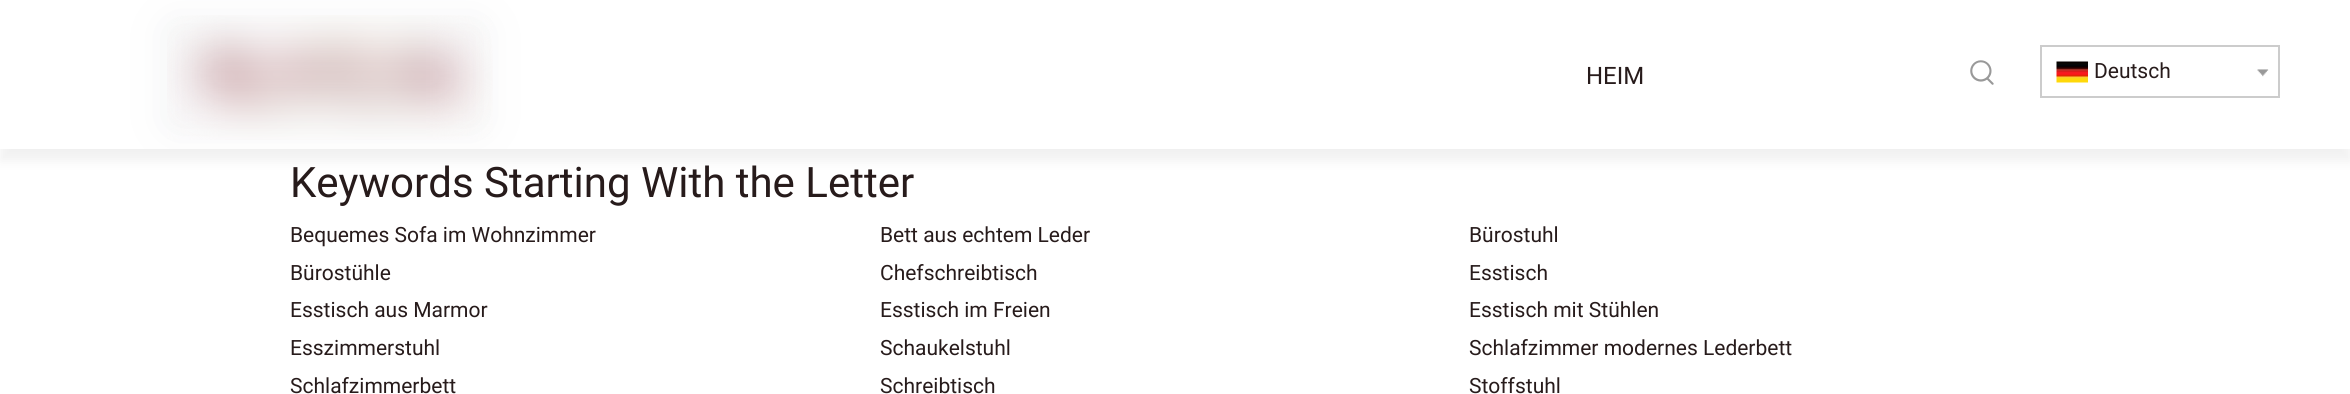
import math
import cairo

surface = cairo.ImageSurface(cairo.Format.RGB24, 2350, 394)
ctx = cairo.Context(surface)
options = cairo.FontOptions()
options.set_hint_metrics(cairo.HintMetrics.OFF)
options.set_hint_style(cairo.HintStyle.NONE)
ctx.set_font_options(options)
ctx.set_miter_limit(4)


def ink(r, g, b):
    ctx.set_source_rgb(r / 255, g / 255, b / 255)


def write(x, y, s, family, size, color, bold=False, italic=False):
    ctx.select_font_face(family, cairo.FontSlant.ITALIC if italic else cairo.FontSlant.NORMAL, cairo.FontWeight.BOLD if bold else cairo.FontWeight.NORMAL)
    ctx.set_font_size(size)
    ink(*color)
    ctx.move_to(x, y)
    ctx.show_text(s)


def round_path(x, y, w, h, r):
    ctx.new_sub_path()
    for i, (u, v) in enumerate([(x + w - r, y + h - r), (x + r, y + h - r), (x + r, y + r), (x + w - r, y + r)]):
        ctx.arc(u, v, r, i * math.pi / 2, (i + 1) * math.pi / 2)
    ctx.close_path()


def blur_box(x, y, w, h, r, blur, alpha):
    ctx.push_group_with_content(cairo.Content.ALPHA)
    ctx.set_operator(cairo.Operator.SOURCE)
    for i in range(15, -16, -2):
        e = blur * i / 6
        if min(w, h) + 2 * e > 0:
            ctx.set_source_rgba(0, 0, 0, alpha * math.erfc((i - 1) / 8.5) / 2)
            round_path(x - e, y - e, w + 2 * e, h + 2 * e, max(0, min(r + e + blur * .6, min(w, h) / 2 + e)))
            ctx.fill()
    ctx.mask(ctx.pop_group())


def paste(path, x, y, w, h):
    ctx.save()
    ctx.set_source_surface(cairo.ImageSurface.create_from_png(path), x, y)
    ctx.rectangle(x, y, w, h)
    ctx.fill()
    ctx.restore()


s1 = dict(family="Roboto", size=24, color=(39, 27, 27))
s2 = dict(family="Roboto", size=21, color=(39, 27, 27))
s3 = dict(family="Roboto", size=42, color=(39, 27, 27))

ink(255, 255, 255)
ctx.paint()
ctx.save()
ctx.set_fill_rule(cairo.FillRule.EVEN_ODD)
ctx.new_path()
ctx.move_to(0, 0)
ctx.line_to(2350, 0)
ctx.line_to(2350, 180)
ctx.line_to(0, 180)
ctx.close_path()
ctx.move_to(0, 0)
ctx.line_to(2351, 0)
ctx.line_to(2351, 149)
ctx.line_to(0, 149)
ctx.close_path()
ctx.clip()
ink(0, 0, 0)
blur_box(0, 12, 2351, 149, 0, 6, 0.06)
ctx.restore()
ctx.save()
ctx.rectangle(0, 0, 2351, 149)
ctx.clip()
ink(240, 241, 242)
blur_box(171, 27, 309, 98, 0, 22.5, 1)
ctx.restore()
paste("pic1.png", 167, 15, 326, 125)
write(1586, 84, "HEIM", **s1)
paste("pic2.png", 1970, 60, 24, 25)
ctx.rectangle(2041, 46, 238, 51)
ink(204, 204, 204)
ctx.stroke()
paste("pic3.png", 2056, 61, 32, 22)
write(2094, 78, "Deutsch", **s2)
paste("pic4.png", 2257, 69, 12, 8)
write(290, 197, "Keywords Starting With the Letter", **s3)
write(290, 242, "Bequemes Sofa im Wohnzimmer", **s2)
write(880, 242, "Bett aus echtem Leder", **s2)
write(1469, 242, "Bürostuhl", **s2)
write(290, 280, "Bürostühle", **s2)
write(880, 280, "Chefschreibtisch", **s2)
write(1469, 280, "Esstisch", **s2)
write(290, 317, "Esstisch aus Marmor", **s2)
write(880, 317, "Esstisch im Freien", **s2)
write(1469, 317, "Esstisch mit Stühlen", **s2)
write(290, 355, "Esszimmerstuhl", **s2)
write(880, 355, "Schaukelstuhl", **s2)
write(1469, 355, "Schlafzimmer modernes Lederbett", **s2)
write(290, 393, "Schlafzimmerbett", **s2)
write(880, 393, "Schreibtisch", **s2)
write(1469, 393, "Stoffstuhl", **s2)
surface.write_to_png("screenshot.png")
